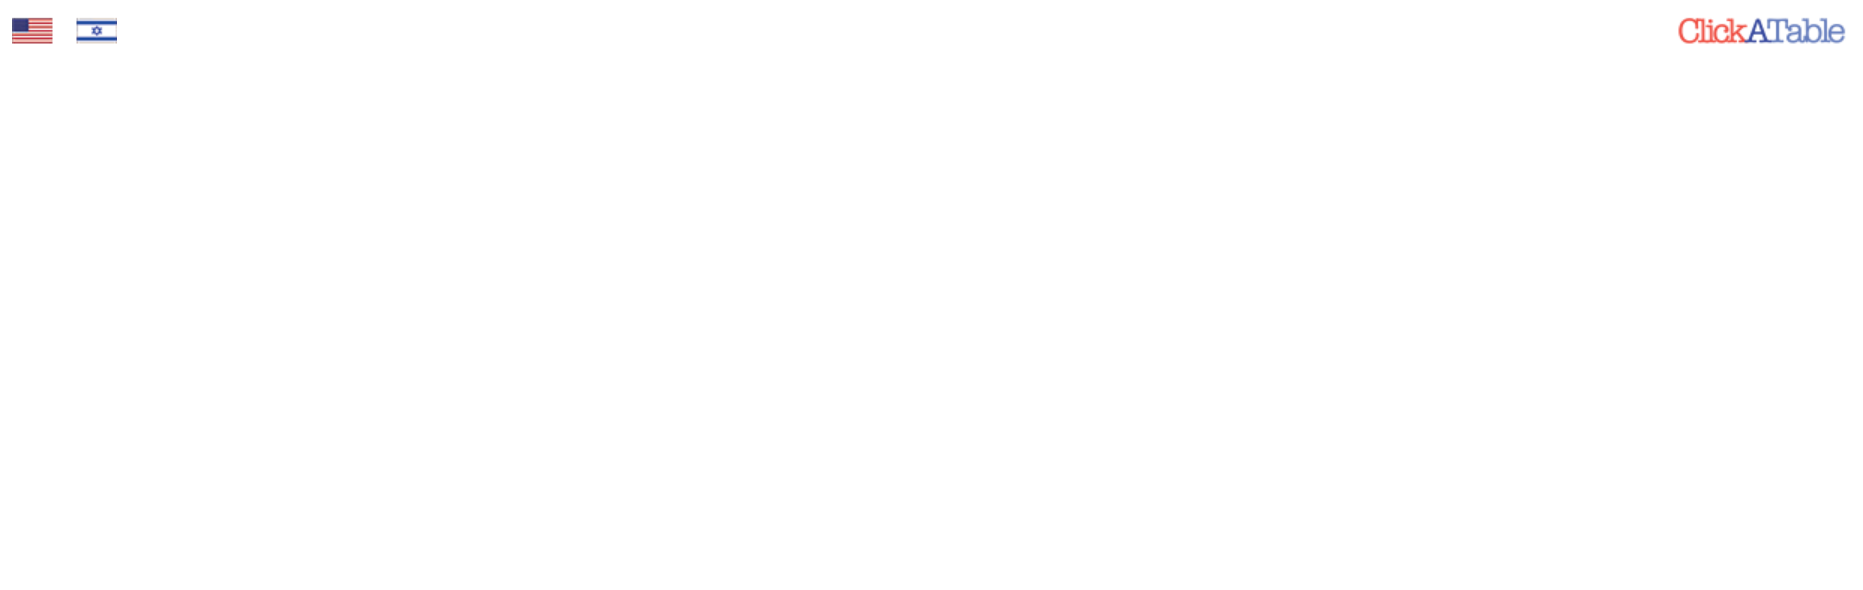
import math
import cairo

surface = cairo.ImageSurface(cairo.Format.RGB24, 1863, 590)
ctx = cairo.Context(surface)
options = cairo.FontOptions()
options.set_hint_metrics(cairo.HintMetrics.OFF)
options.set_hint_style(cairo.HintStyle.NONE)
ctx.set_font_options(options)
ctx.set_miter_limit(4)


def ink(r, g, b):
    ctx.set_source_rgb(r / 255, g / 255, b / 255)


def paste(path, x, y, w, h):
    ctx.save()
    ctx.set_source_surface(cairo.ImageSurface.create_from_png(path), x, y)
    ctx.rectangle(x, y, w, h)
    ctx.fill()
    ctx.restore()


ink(255, 255, 255)
ctx.paint()
paste("pic1.png", 12, 17, 41, 27)
paste("pic2.png", 76, 17, 41, 27)
paste("pic3.png", 1678, 17, 168, 27)
surface.write_to_png("screenshot.png")
